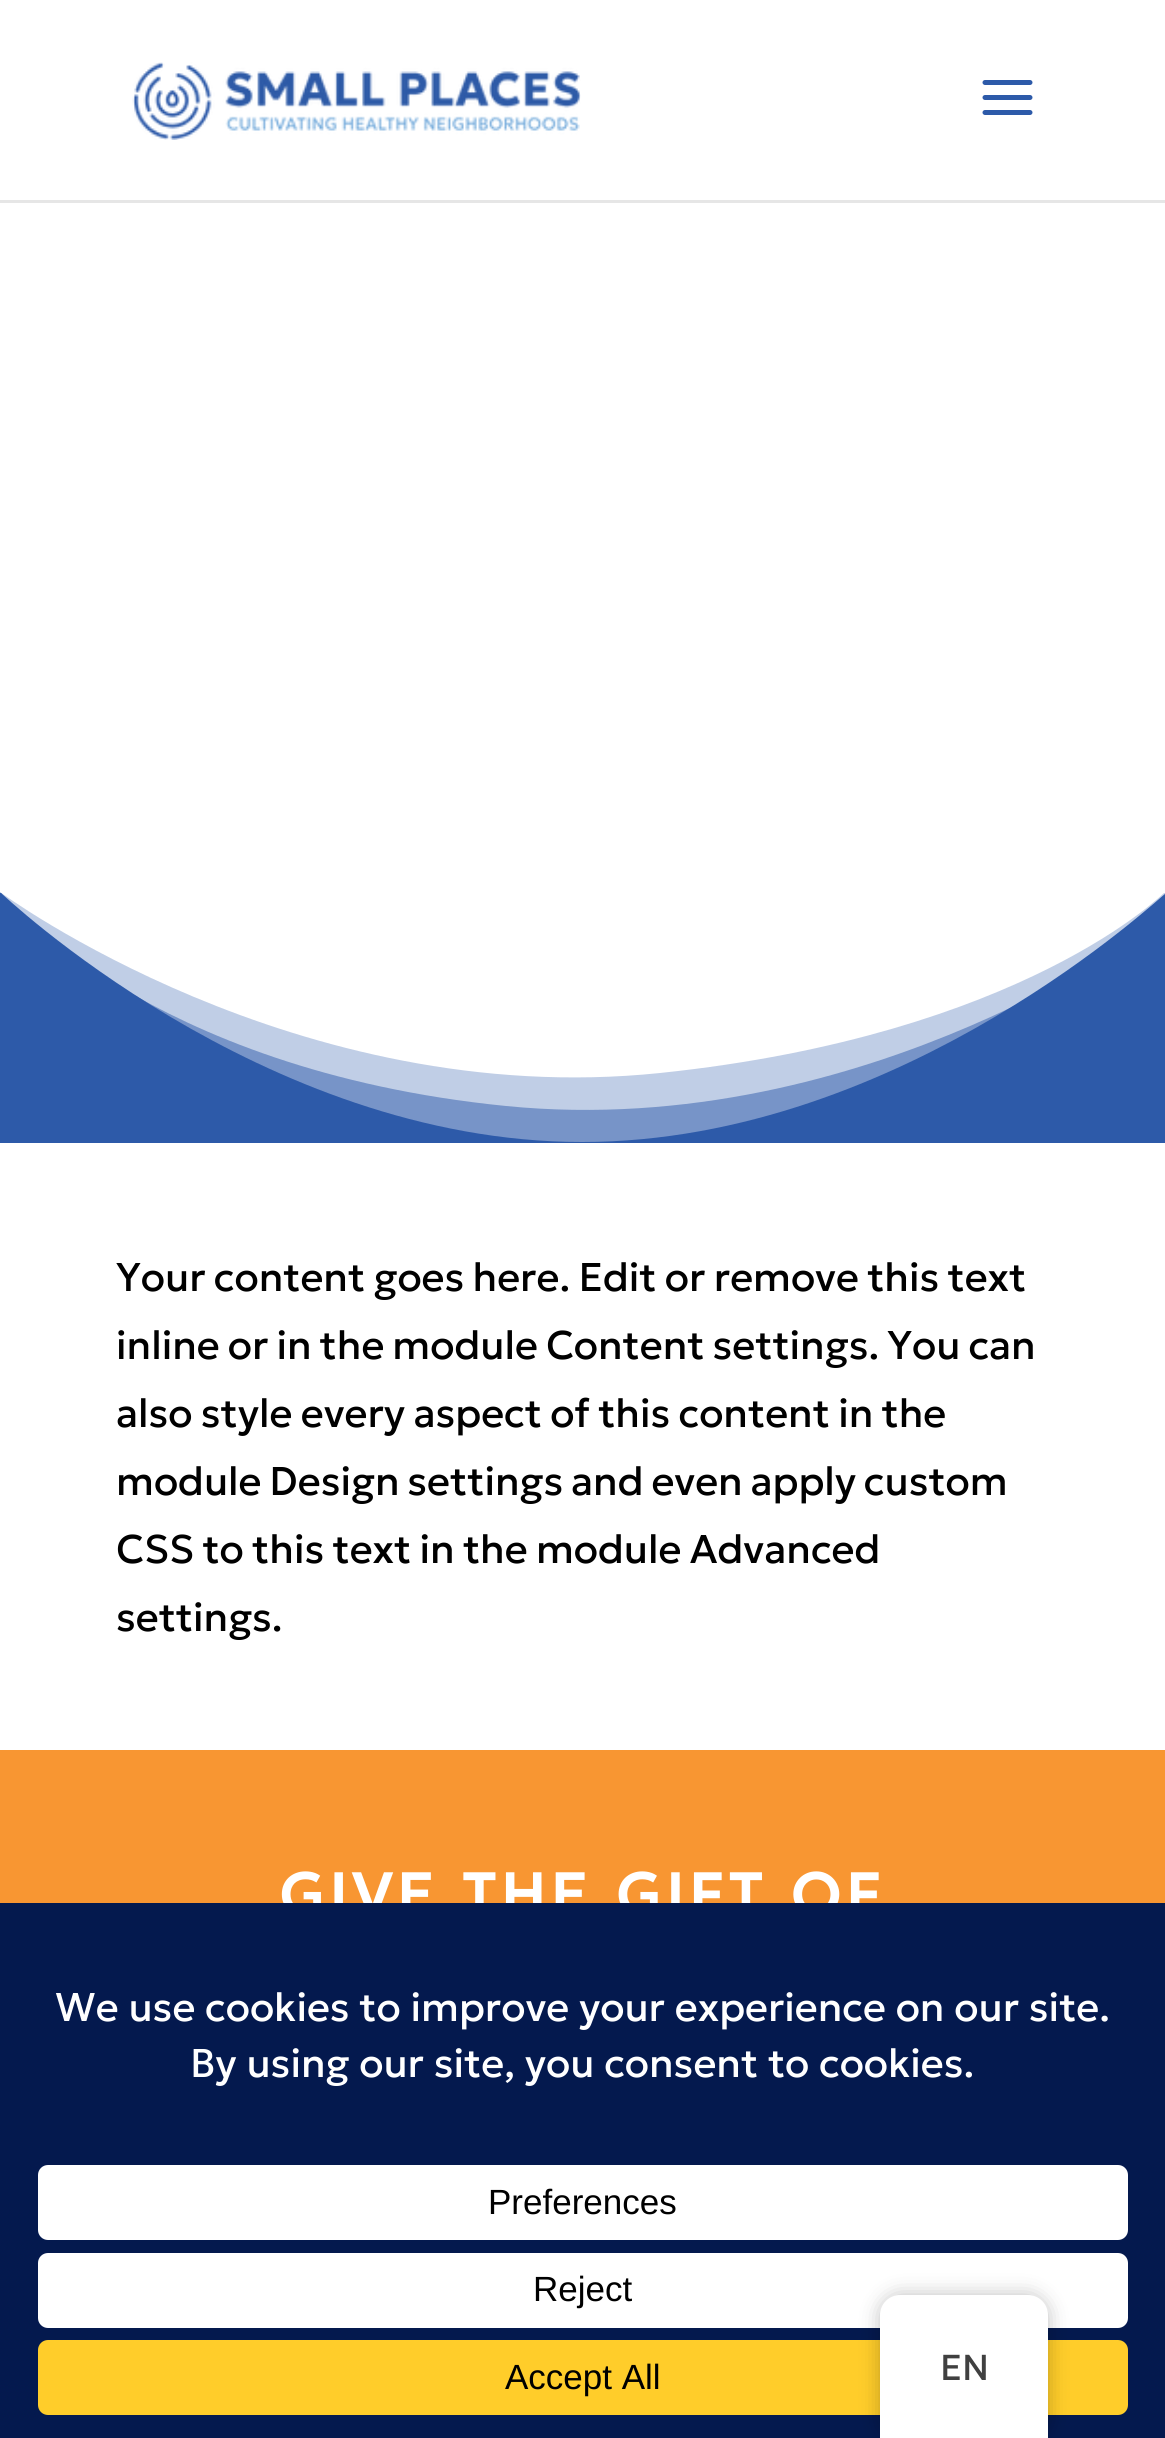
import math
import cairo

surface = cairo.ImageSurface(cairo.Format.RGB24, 1165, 2438)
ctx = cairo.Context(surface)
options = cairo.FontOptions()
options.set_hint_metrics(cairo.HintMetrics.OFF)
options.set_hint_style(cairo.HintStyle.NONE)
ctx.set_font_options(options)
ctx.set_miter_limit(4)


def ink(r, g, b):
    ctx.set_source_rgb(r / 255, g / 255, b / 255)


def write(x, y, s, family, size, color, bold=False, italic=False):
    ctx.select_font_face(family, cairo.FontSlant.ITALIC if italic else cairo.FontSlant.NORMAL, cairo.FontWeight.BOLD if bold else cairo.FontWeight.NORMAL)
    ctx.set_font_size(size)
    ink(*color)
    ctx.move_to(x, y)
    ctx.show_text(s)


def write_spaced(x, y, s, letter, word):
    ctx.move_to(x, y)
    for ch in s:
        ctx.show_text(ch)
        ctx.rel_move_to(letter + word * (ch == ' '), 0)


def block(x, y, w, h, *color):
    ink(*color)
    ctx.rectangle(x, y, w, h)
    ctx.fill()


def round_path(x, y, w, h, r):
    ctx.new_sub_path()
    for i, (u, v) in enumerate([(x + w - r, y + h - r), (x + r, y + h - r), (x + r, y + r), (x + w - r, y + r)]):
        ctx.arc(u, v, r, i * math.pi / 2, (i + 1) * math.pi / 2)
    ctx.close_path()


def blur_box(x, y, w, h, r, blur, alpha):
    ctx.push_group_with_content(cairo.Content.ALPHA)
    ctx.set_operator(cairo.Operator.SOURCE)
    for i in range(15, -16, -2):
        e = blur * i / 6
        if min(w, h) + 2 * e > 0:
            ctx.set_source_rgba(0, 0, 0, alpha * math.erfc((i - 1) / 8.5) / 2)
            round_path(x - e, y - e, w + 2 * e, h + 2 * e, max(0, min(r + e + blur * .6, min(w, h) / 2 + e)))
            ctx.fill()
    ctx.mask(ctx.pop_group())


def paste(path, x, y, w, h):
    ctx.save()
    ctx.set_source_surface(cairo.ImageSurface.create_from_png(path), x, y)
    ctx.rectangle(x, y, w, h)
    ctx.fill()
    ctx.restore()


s1 = dict(family="Geologica", size=40, color=(0, 0, 0))
s2 = dict(family="Geologica", size=40, color=(255, 255, 255))
s3 = dict(family="Liberation Sans", size=35, color=(0, 0, 0))
s4 = dict(family="Geologica", size=36, color=(64, 64, 64))

ink(255, 255, 255)
ctx.paint()
block(0, 200, 1165, 3, 230, 230, 230)
paste("pic1.png", 132, 62, 449, 78)
paste("pic2.png", 982, 80, 51, 35)
ctx.save()
ctx.rectangle(0, 893, 1165, 250)
ctx.clip()
ink(192, 206, 230)
ctx.new_path()
ctx.move_to(660, 1073)
ctx.curve_to(296, 1111, 0, 892, 0, 892)
ctx.line_to(0, 1142)
ctx.line_to(1165, 1142)
ctx.line_to(1165, 892)
ctx.curve_to(1165, 892, 1024, 1035, 660, 1073)
ctx.close_path()
ctx.fill()
ctx.restore()
ink(119, 148, 200)
ctx.new_path()
ctx.move_to(506, 1106)
ctx.curve_to(868, 1142, 1165, 918, 1165, 918)
ctx.line_to(1165, 1142)
ctx.line_to(0, 1142)
ctx.line_to(0, 892)
ctx.curve_to(0, 892, 145, 1070, 506, 1106)
ctx.close_path()
ctx.fill()
ctx.save()
ctx.rectangle(0, 893, 1165, 250)
ctx.clip()
ink(45, 90, 169)
ctx.new_path()
ctx.move_to(582, 1142)
ctx.curve_to(904, 1142, 1165, 892, 1165, 894)
ctx.line_to(1165, 1144)
ctx.line_to(0, 1144)
ctx.line_to(0, 892)
ctx.curve_to(0, 892, 261, 1142, 582, 1142)
ctx.close_path()
ctx.fill()
ctx.restore()
ctx.select_font_face("Geologica")
ctx.set_font_size(40)
ink(0, 0, 0)
write_spaced(116, 1291, "Your content goes here. Edit or remove this text", 0, -1.5)
write_spaced(116, 1359, "inline or in the module Content settings. You can", 0, -1.75)
write_spaced(116, 1427, "also style every aspect of this content in the", 0, -1.5)
write_spaced(116, 1495, "module Design settings and even apply custom", 0, -2)
write_spaced(116, 1563, "CSS to this text in the module Advanced", 0, -1.5)
write(116, 1631, "settings.", **s1)
block(0, 1750, 1165, 153, 248, 150, 50)
ctx.select_font_face("Geologica", cairo.FontSlant.NORMAL, cairo.FontWeight.BOLD)
ctx.set_font_size(60)
ink(255, 255, 255)
write_spaced(279, 1916, "GIVE THE GIFT OF", 5, 4)
block(0, 1903, 1165, 535, 4, 25, 78)
write(55, 2021, "We use cookies to improve your experience on our site.", **s2)
write(190, 2077, "By using our site, you consent to cookies.", **s2)
round_path(38, 2165, 1090, 75, 10)
ctx.fill()
write(488, 2214, "Preferences", **s3)
ink(255, 255, 255)
round_path(38, 2253, 1090, 75, 10)
ctx.fill()
write(533, 2301, "Reject", **s3)
ink(255, 205, 42)
round_path(38, 2340, 1090, 75, 10)
ctx.fill()
write(505, 2389, "Accept All", **s3)
ink(0, 0, 0)
blur_box(880, 2295, 168, 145, 20, 10, 0.25)
ink(255, 255, 255)
ctx.new_path()
ctx.move_to(900, 2295)
ctx.line_to(1028, 2295)
ctx.curve_to(1039, 2295, 1048, 2304, 1048, 2315)
ctx.line_to(1048, 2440)
ctx.line_to(880, 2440)
ctx.line_to(880, 2315)
ctx.curve_to(880, 2304, 889, 2295, 900, 2295)
ctx.close_path()
ctx.fill()
write(940, 2380, "EN", **s4)
surface.write_to_png("screenshot.png")
